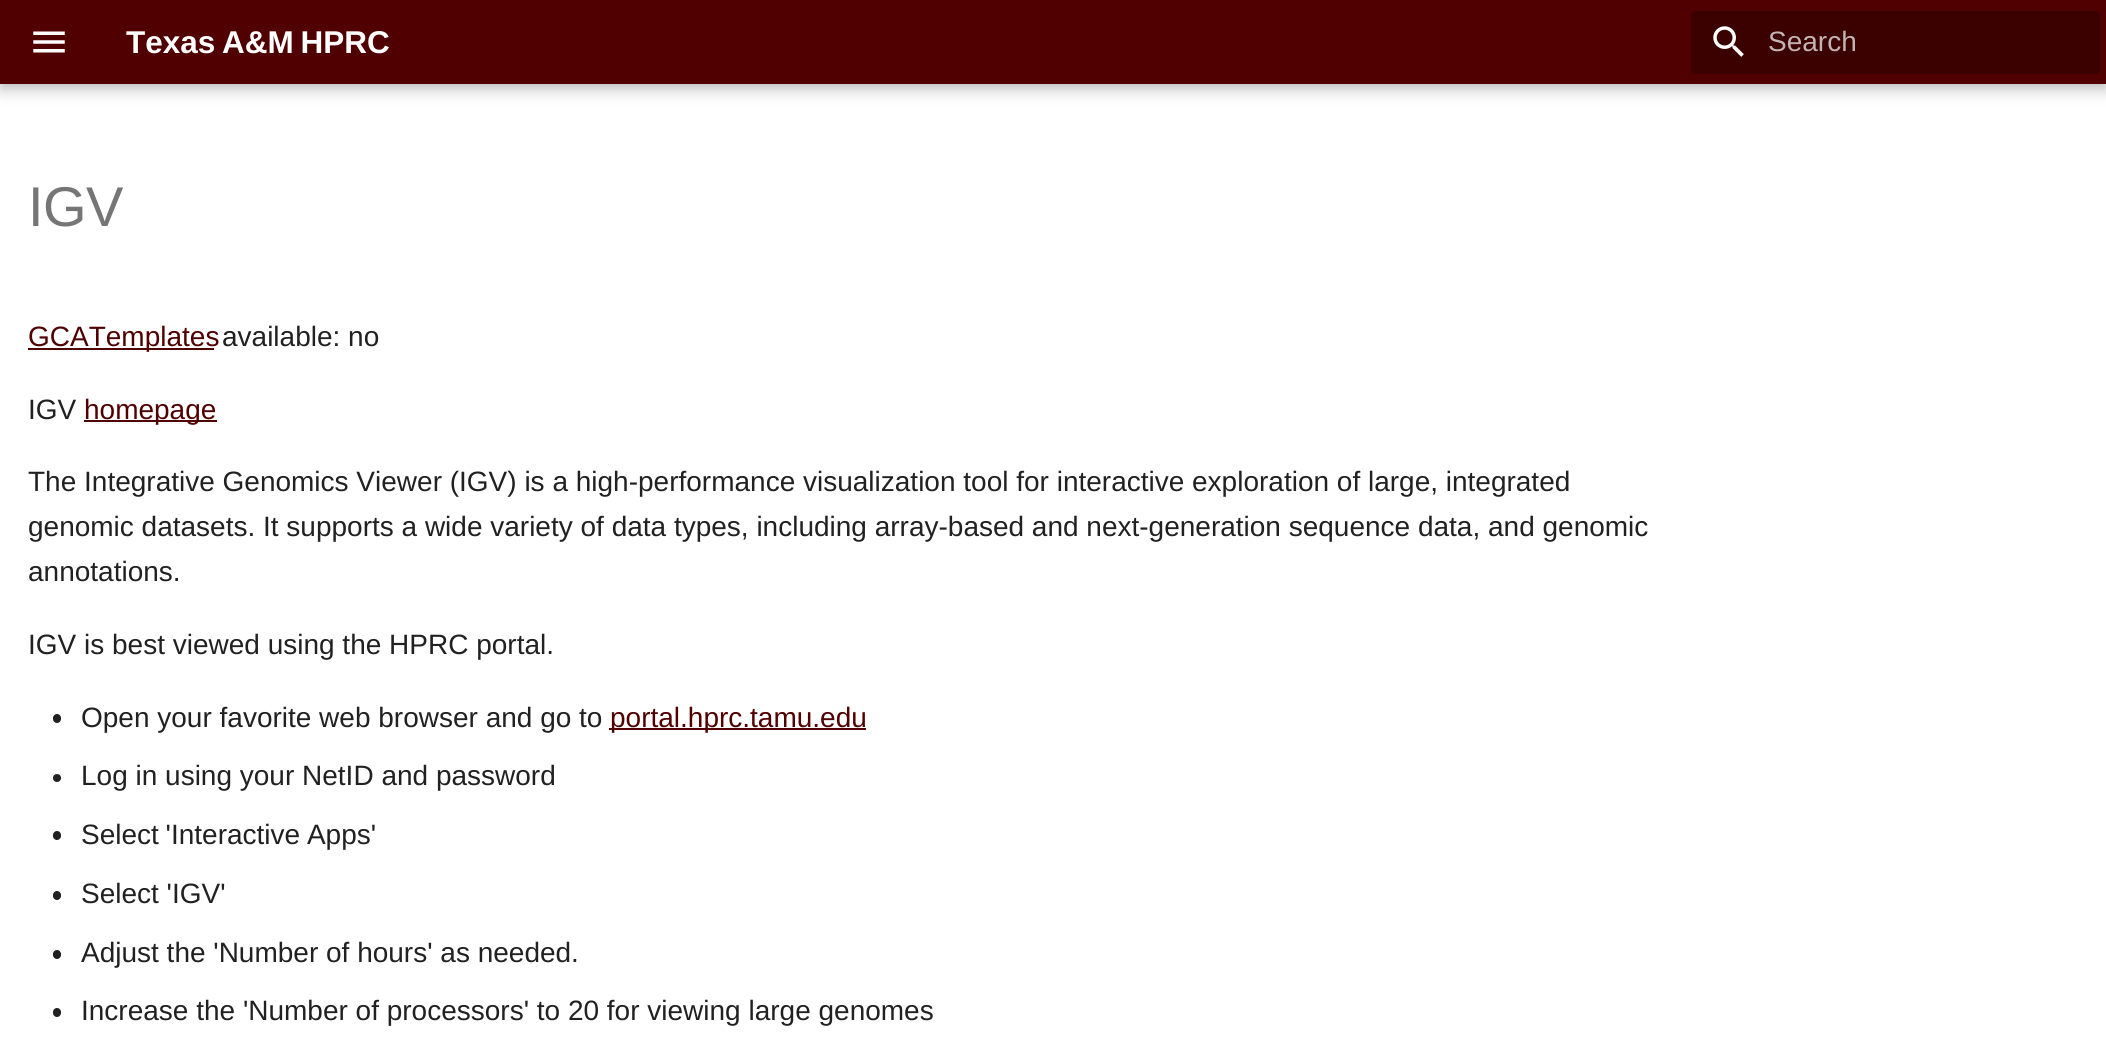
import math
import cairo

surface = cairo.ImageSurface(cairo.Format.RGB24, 2106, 1040)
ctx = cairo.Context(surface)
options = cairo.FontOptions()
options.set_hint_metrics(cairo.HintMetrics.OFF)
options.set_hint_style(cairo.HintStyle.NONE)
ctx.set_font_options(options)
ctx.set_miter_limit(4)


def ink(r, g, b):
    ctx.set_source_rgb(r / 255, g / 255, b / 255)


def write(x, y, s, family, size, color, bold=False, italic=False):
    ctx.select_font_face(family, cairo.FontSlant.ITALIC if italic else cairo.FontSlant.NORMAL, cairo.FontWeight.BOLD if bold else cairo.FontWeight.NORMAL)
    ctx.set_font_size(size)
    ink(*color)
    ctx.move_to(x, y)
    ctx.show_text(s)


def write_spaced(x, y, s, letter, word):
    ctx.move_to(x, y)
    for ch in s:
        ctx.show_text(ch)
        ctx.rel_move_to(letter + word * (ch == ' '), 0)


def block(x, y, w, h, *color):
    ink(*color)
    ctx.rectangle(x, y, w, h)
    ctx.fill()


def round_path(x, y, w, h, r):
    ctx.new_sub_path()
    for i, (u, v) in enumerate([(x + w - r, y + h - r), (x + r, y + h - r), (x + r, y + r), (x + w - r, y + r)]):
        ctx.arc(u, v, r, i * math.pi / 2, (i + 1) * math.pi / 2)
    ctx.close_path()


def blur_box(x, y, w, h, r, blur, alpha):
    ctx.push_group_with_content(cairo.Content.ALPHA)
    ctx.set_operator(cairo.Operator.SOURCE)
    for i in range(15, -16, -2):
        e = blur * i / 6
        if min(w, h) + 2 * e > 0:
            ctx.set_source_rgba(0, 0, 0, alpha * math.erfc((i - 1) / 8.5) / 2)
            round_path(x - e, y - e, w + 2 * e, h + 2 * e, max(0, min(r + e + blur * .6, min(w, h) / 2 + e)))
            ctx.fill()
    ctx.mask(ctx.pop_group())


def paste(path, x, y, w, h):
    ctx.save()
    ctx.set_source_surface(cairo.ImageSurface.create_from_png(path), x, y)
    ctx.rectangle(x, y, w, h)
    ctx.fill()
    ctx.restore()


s1 = dict(family="Liberation Sans", size=28, color=(196, 179, 179))
s2 = dict(family="Liberation Sans", size=28, color=(80, 0, 0))
s3 = dict(family="Liberation Sans", size=28, color=(33, 33, 33))

ink(255, 255, 255)
ctx.paint()
ink(0, 0, 0)
blur_box(0, 7, 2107, 84, 0, 7, 0.2)
blur_box(0, 0, 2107, 84, 0, 3.5, 0.1)
block(0, 0, 2106, 84, 80, 0, 0)
paste("pic1.png", 33, 31, 32, 22)
ctx.select_font_face("Liberation Sans", cairo.FontSlant.NORMAL, cairo.FontWeight.BOLD)
ctx.set_font_size(31.5)
ink(255, 255, 255)
write_spaced(126, 53, "Texas A&M HPRC", 0, -2)
ink(59, 0, 0)
round_path(1691, 11, 409, 63, 4)
ctx.fill()
paste("pic2.png", 1713, 26, 31, 31)
write(1768, 51, "Search", **s1)
ctx.set_font_size(56)
ink(117, 117, 117)
write_spaced(28, 226, "IGV", -0.5, 0)
block(28, 348, 186, 2, 80, 0, 0)
write(28, 346, "GCATemplates", **s2)
write(222, 346, "available: no", **s3)
write(28, 419, "IGV", **s3)
block(84, 420, 133, 2, 80, 0, 0)
write(84, 419, "homepage", **s2)
write(28, 491, "The Integrative Genomics Viewer (IGV) is a high-performance visualization tool for interactive exploration of large, integrated", **s3)
write(28, 536, "genomic datasets. It supports a wide variety of data types, including array-based and next-generation sequence data, and genomic", **s3)
write(28, 581, "annotations.", **s3)
write(28, 654, "IGV is best viewed using the HPRC portal.", **s3)
round_path(53, 714, 8, 9, 4)
ctx.fill()
write(81, 727, "Open your favorite web browser and go to", **s3)
block(609, 728, 257, 2, 80, 0, 0)
write(610, 727, "portal.hprc.tamu.edu", **s2)
ink(33, 33, 33)
ctx.new_path()
ctx.arc(57, 778, 4, 0, 2 * math.pi)
ctx.fill()
write(81, 785, "Log in using your NetID and password", **s3)
round_path(53, 831, 8, 9, 4)
ctx.fill()
write_spaced(81, 844, "Select 'Interactive Apps'", 0, -1)
round_path(53, 891, 8, 9, 4)
ctx.fill()
write(81, 903, "Select 'IGV'", **s3)
round_path(53, 950, 8, 9, 4)
ctx.fill()
write(81, 962, "Adjust the 'Number of hours' as needed.", **s3)
round_path(53, 1008, 8, 9, 4)
ctx.fill()
write(81, 1020, "Increase the 'Number of processors' to 20 for viewing large genomes", **s3)
surface.write_to_png("screenshot.png")
